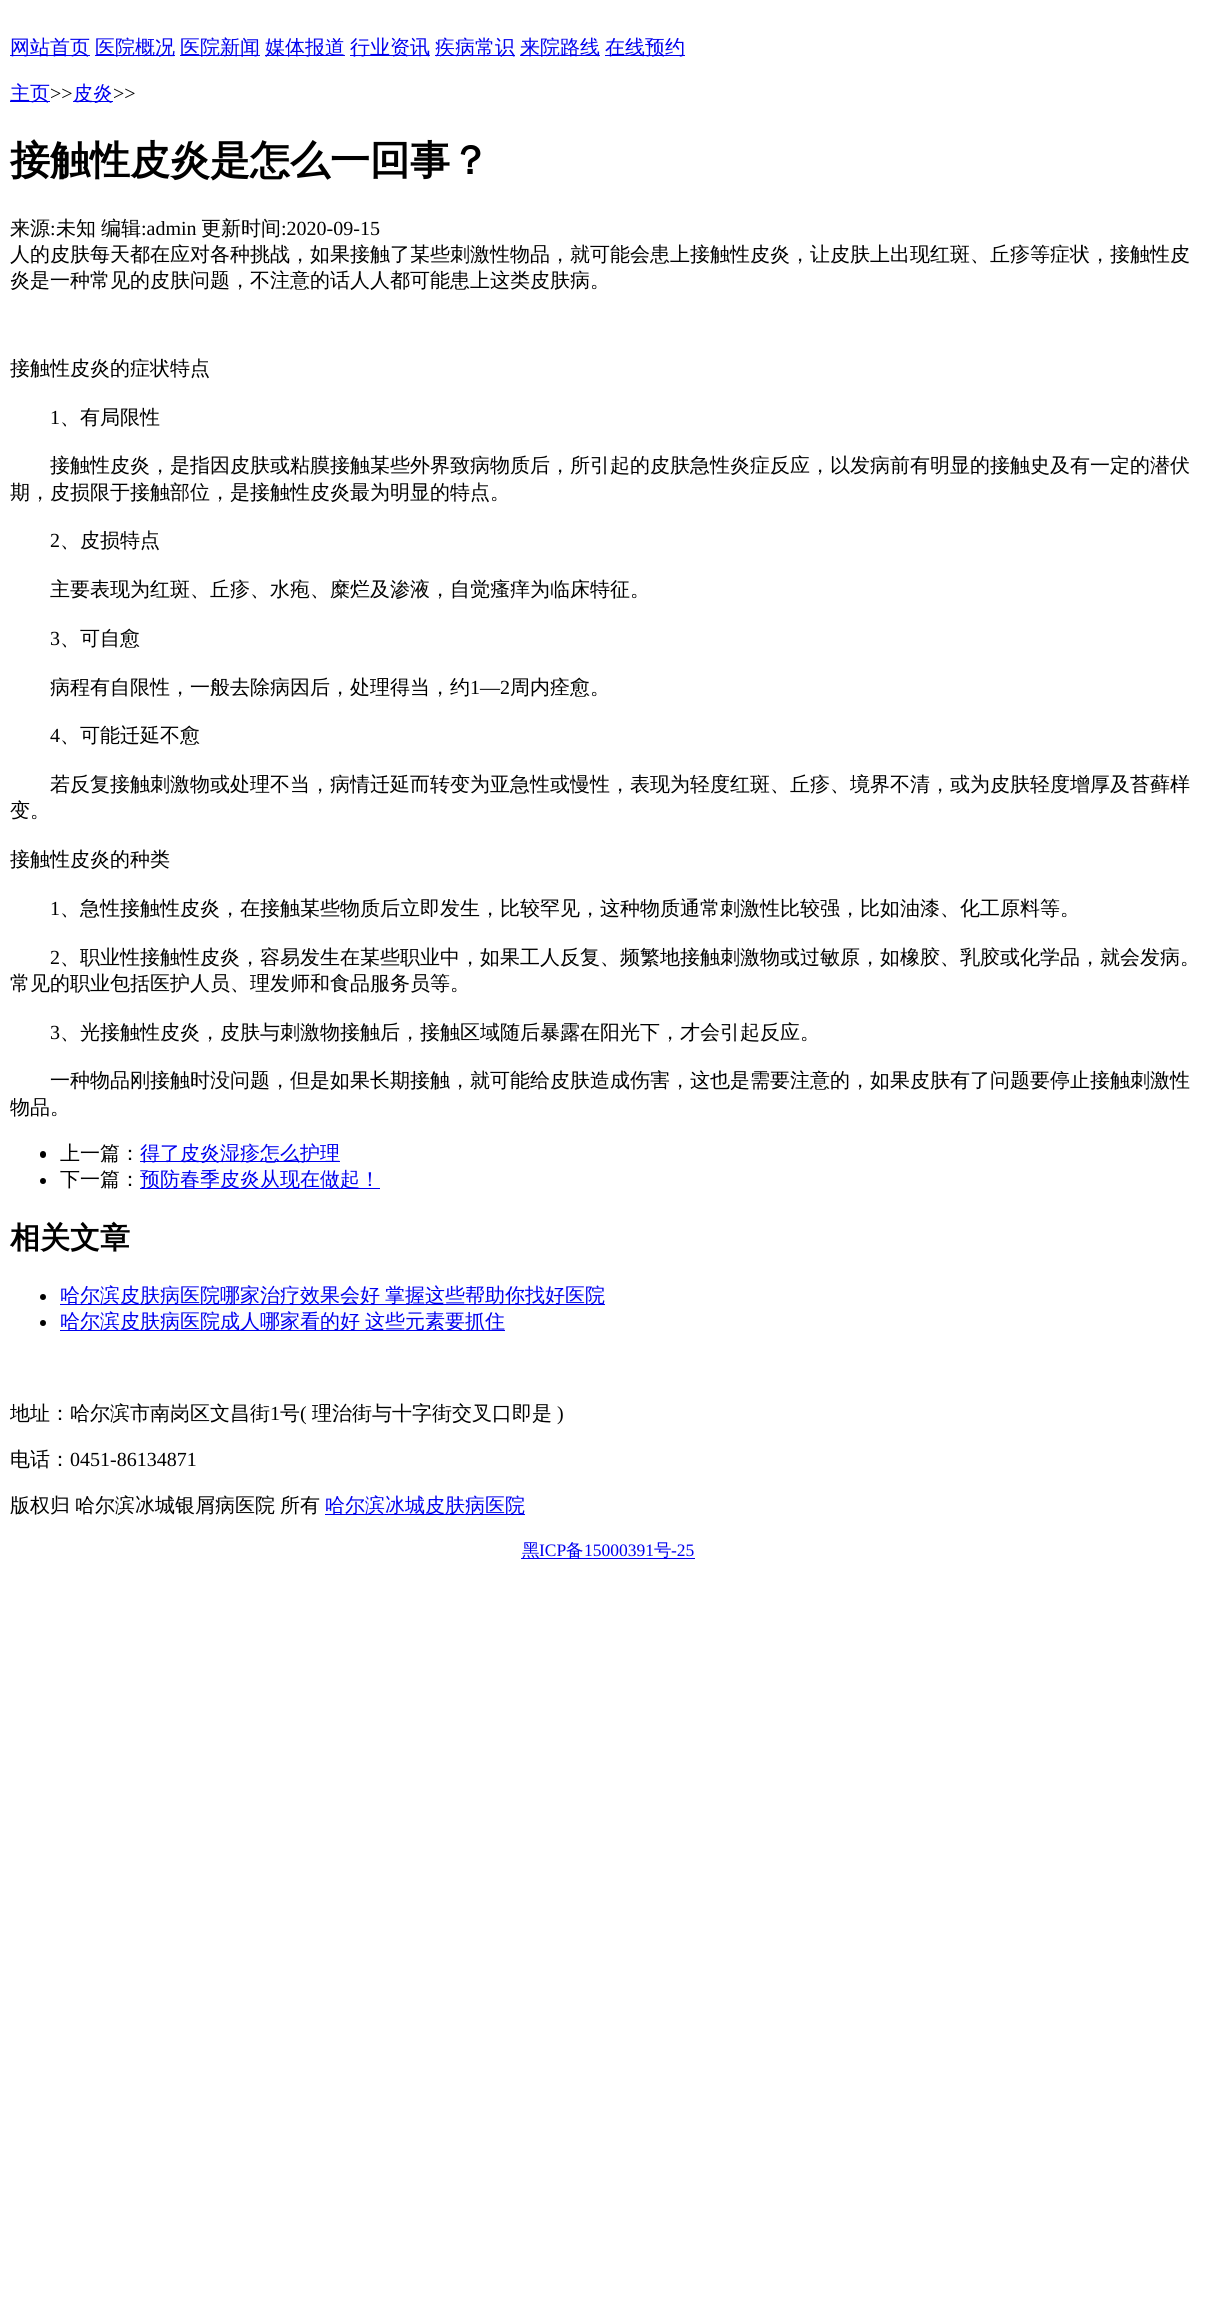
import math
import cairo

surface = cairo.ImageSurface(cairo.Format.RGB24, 1216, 2313)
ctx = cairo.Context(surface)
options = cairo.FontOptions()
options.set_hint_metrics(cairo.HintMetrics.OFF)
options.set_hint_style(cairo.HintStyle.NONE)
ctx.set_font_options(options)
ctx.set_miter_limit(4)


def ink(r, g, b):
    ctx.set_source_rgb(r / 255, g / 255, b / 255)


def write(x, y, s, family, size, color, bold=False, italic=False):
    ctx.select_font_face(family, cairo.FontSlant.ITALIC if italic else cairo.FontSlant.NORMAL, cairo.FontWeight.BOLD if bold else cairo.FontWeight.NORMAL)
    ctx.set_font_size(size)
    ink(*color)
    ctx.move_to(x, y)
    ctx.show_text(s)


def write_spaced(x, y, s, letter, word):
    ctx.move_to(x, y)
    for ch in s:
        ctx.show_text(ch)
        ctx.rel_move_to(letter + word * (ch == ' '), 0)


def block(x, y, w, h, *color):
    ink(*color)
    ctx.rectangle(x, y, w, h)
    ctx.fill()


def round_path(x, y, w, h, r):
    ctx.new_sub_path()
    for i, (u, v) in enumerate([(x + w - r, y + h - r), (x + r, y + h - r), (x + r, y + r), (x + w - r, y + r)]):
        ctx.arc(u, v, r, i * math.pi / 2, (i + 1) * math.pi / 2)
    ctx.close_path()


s1 = dict(family="WenQuanYi Zen Hei Medium", size=20, color=(0, 0, 238))
s2 = dict(family="Liberation Serif", size=20, color=(0, 0, 0))
s3 = dict(family="WenQuanYi Zen Hei", size=40, color=(0, 0, 0), bold=True)
s4 = dict(family="WenQuanYi Zen Hei Medium", size=20, color=(0, 0, 0))
s5 = dict(family="WenQuanYi Zen Hei", size=30, color=(0, 0, 0), bold=True)
s6 = dict(family="WenQuanYi Zen Hei Medium", size=17.5, color=(0, 0, 238))
s7 = dict(family="Liberation Serif", size=17.5, color=(0, 0, 238))

ink(255, 255, 255)
ctx.paint()
block(10, 55, 80, 1, 0, 0, 238)
write(10, 54, "网站首页", **s1)
block(95, 55, 80, 1, 0, 0, 238)
write(95, 54, "医院概况", **s1)
block(180, 55, 80, 1, 0, 0, 238)
write(180, 54, "医院新闻", **s1)
block(265, 55, 80, 1, 0, 0, 238)
write(265, 54, "媒体报道", **s1)
block(350, 55, 80, 1, 0, 0, 238)
write(350, 54, "行业资讯", **s1)
block(435, 55, 80, 1, 0, 0, 238)
write(435, 54, "疾病常识", **s1)
block(520, 55, 80, 1, 0, 0, 238)
write(520, 54, "来院路线", **s1)
block(605, 55, 80, 1, 0, 0, 238)
write(605, 54, "在线预约", **s1)
block(10, 101, 40, 1, 0, 0, 238)
write(10, 100, "主页", **s1)
write(50, 100, ">>", **s2)
block(73, 101, 40, 1, 0, 0, 238)
write(73, 100, "皮炎", **s1)
write(113, 100, ">>", **s2)
write(10, 174, "接触性皮炎是怎么一回事？", **s3)
write(10, 235, "来源", **s4)
write(50, 235, ":", **s2)
write(56, 235, "未知", **s4)
write(101, 235, "编辑", **s4)
write(141, 235, ":admin", **s2)
write(201, 235, "更新时间", **s4)
write(281, 235, ":2020-09-15", **s2)
write(10, 261, "人的皮肤每天都在应对各种挑战，如果接触了某些刺激性物品，就可能会患上接触性皮炎，让皮肤上出现红斑、丘疹等症状，接触性皮", **s4)
write(10, 287, "炎是一种常见的皮肤问题，不注意的话人人都可能患上这类皮肤病。", **s4)
write(10, 375, "接触性皮炎的症状特点", **s4)
write(50, 424, "1", **s2)
write(60, 424, "、有局限性", **s4)
write(50, 472, "接触性皮炎，是指因皮肤或粘膜接触某些外界致病物质后，所引起的皮肤急性炎症反应，以发病前有明显的接触史及有一定的潜伏", **s4)
write(10, 499, "期，皮损限于接触部位，是接触性皮炎最为明显的特点。", **s4)
write(50, 547, "2", **s2)
write(60, 547, "、皮损特点", **s4)
write(50, 596, "主要表现为红斑、丘疹、水疱、糜烂及渗液，自觉瘙痒为临床特征。", **s4)
write(50, 645, "3", **s2)
write(60, 645, "、可自愈", **s4)
write(50, 694, "病程有自限性，一般去除病因后，处理得当，约", **s4)
write(470, 694, "1—2", **s2)
write(510, 694, "周内痊愈。", **s4)
write(50, 742, "4", **s2)
write(60, 742, "、可能迁延不愈", **s4)
write(50, 791, "若反复接触刺激物或处理不当，病情迁延而转变为亚急性或慢性，表现为轻度红斑、丘疹、境界不清，或为皮肤轻度增厚及苔藓样", **s4)
write(10, 817, "变。", **s4)
write(10, 866, "接触性皮炎的种类", **s4)
write(50, 915, "1", **s2)
write(60, 915, "、急性接触性皮炎，在接触某些物质后立即发生，比较罕见，这种物质通常刺激性比较强，比如油漆、化工原料等。", **s4)
write(50, 964, "2", **s2)
write(60, 964, "、职业性接触性皮炎，容易发生在某些职业中，如果工人反复、频繁地接触刺激物或过敏原，如橡胶、乳胶或化学品，就会发病。", **s4)
write(10, 990, "常见的职业包括医护人员、理发师和食品服务员等。", **s4)
write(50, 1039, "3", **s2)
write(60, 1039, "、光接触性皮炎，皮肤与刺激物接触后，接触区域随后暴露在阳光下，才会引起反应。", **s4)
write(50, 1087, "一种物品刚接触时没问题，但是如果长期接触，就可能给皮肤造成伤害，这也是需要注意的，如果皮肤有了问题要停止接触刺激性", **s4)
write(10, 1114, "物品。", **s4)
round_path(40, 1151, 6, 7, 3)
ctx.fill()
write(60, 1160, "上一篇：", **s4)
block(140, 1161, 200, 1, 0, 0, 238)
write(140, 1160, "得了皮炎湿疹怎么护理", **s1)
ink(0, 0, 0)
ctx.new_path()
ctx.arc(43, 1181, 3, 0, 2 * math.pi)
ctx.fill()
write(60, 1186, "下一篇：", **s4)
block(140, 1188, 240, 1, 0, 0, 238)
write(140, 1186, "预防春季皮炎从现在做起！", **s1)
write(10, 1248, "相关文章", **s5)
ctx.new_path()
ctx.arc(43, 1297, 3, 0, 2 * math.pi)
ctx.fill()
block(60, 1304, 545, 1, 0, 0, 238)
ctx.select_font_face("WenQuanYi Zen Hei Medium")
ctx.set_font_size(20)
write_spaced(60, 1302, "哈尔滨皮肤病医院哪家治疗效果会好 掌握这些帮助你找好医院", 0, -1)
ink(0, 0, 0)
ctx.new_path()
ctx.arc(43, 1323, 3, 0, 2 * math.pi)
ctx.fill()
block(60, 1330, 445, 1, 0, 0, 238)
write_spaced(60, 1328, "哈尔滨皮肤病医院成人哪家看的好 这些元素要抓住", 0, -1)
write(10, 1420, "地址：哈尔滨市南岗区文昌街", **s4)
write(270, 1420, "1", **s2)
write(280, 1420, "号", **s4)
write(300, 1420, "(", **s2)
write(312, 1420, "理治街与十字街交叉口即是", **s4)
write(557, 1420, ")", **s2)
write(10, 1466, "电话：", **s4)
write(70, 1466, "0451-86134871", **s2)
ctx.select_font_face("WenQuanYi Zen Hei Medium")
write_spaced(10, 1512, "版权归 哈尔滨冰城银屑病医院 所有", 0, -1)
block(325, 1514, 200, 1, 0, 0, 238)
write(325, 1512, "哈尔滨冰城皮肤病医院", **s1)
block(521, 1558, 174, 1, 0, 0, 238)
write(522, 1556, "黑", **s6)
write(539, 1556, "ICP", **s7)
write(566, 1556, "备", **s6)
write(584, 1556, "15000391", **s7)
write(654, 1556, "号", **s6)
write(671, 1556, "-25", **s7)
surface.write_to_png("screenshot.png")
